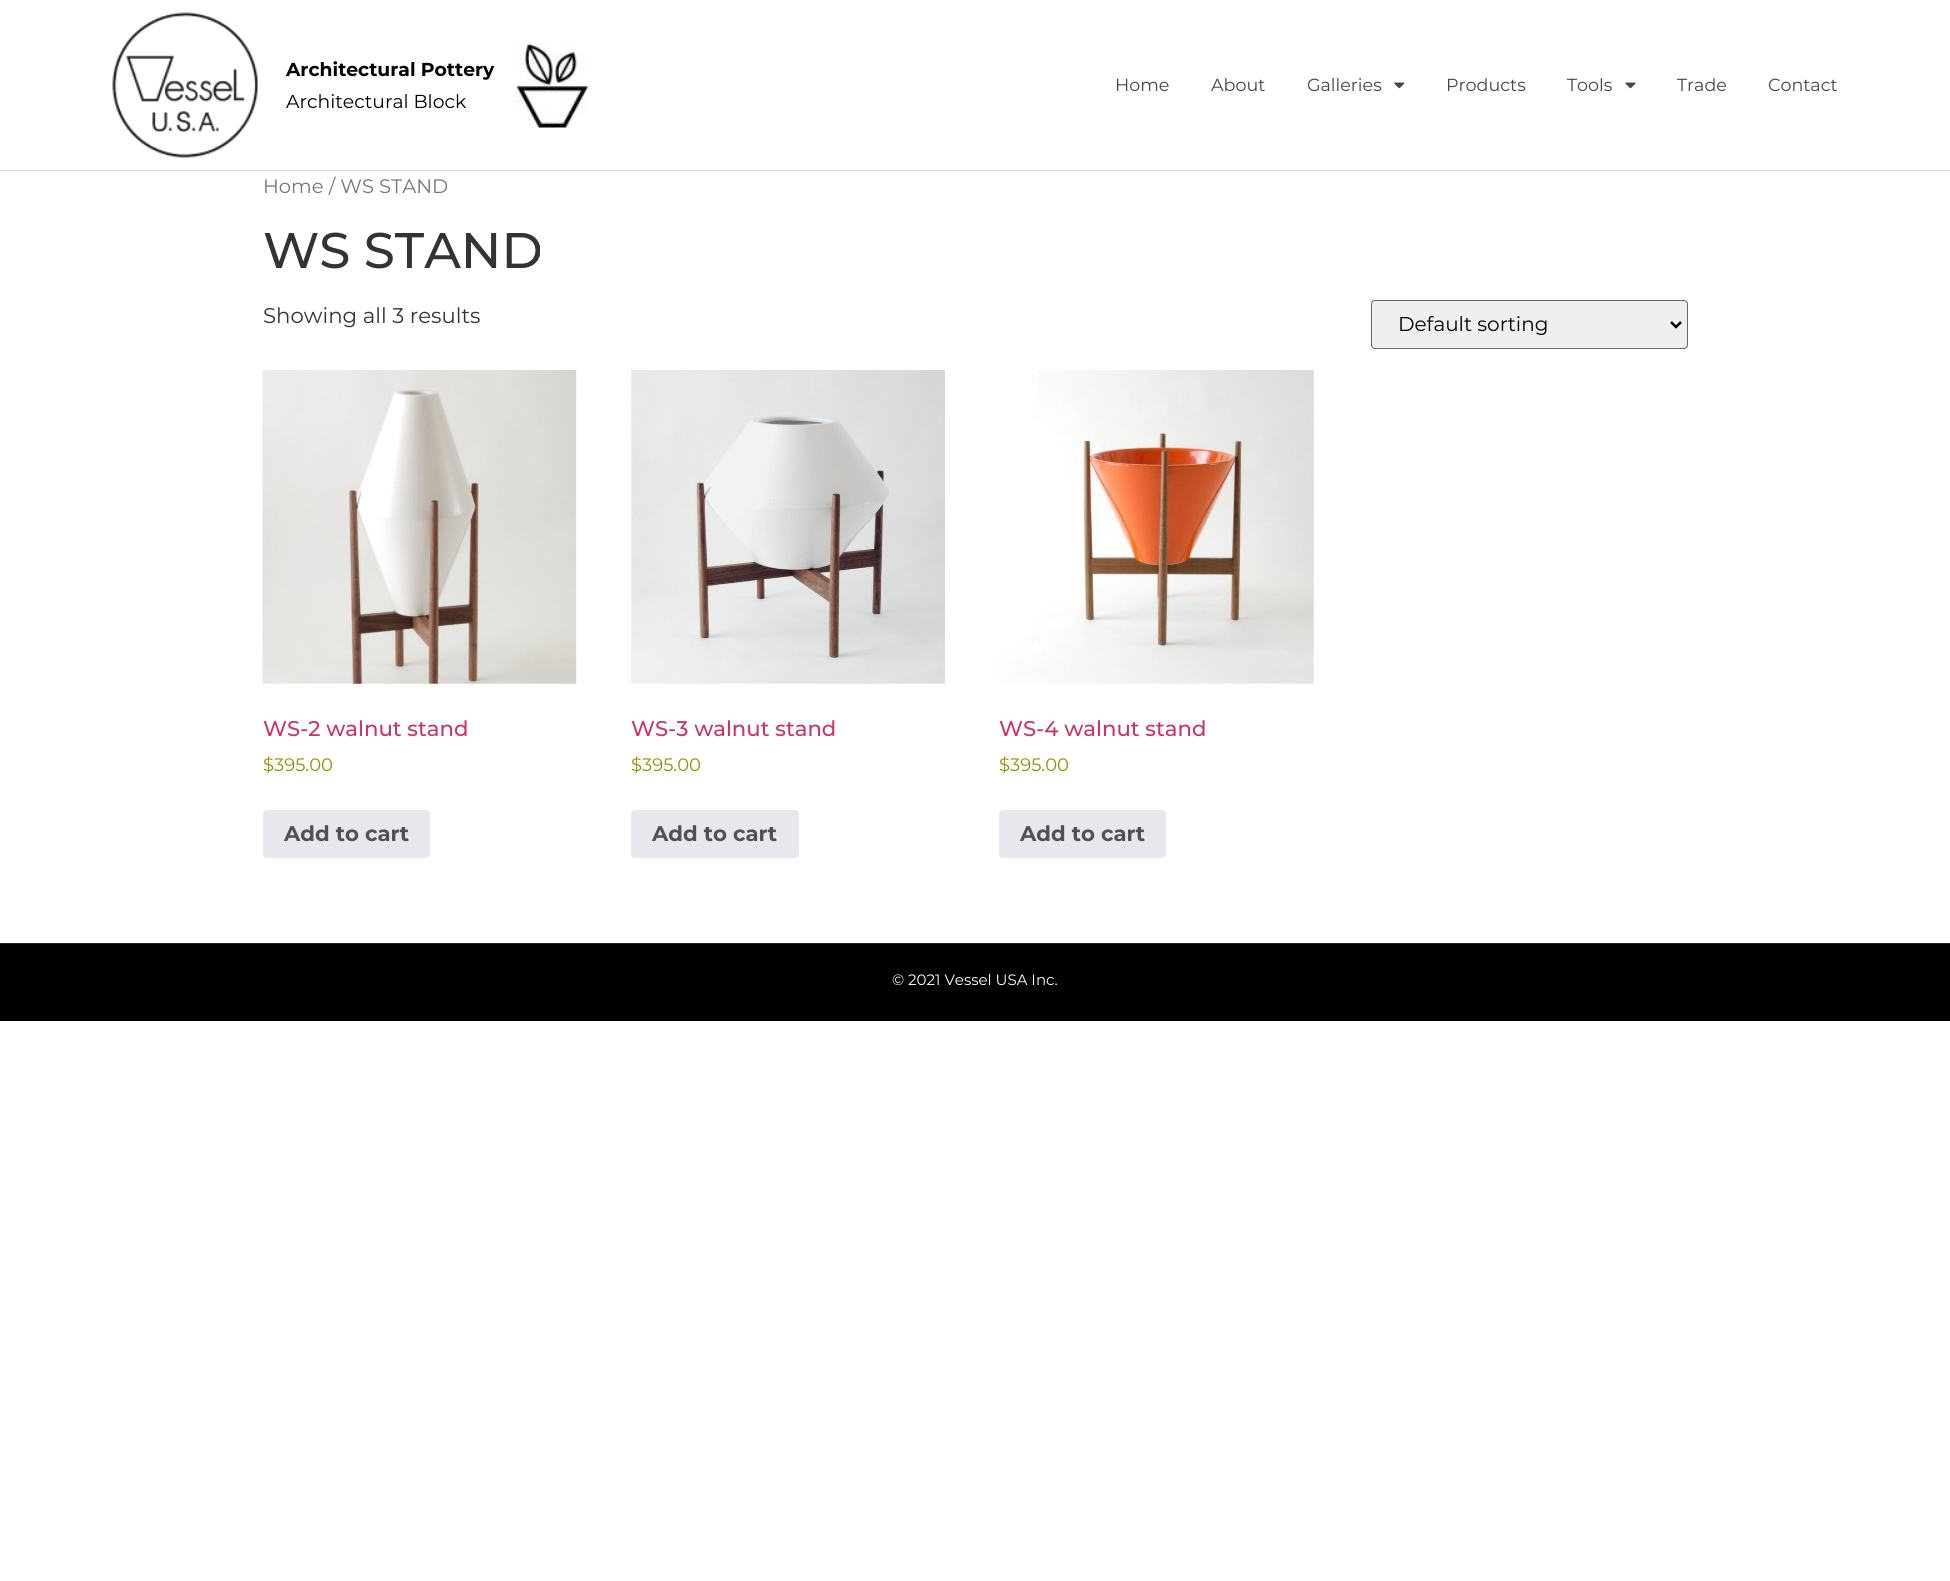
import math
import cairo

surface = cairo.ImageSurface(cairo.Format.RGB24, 1950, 1581)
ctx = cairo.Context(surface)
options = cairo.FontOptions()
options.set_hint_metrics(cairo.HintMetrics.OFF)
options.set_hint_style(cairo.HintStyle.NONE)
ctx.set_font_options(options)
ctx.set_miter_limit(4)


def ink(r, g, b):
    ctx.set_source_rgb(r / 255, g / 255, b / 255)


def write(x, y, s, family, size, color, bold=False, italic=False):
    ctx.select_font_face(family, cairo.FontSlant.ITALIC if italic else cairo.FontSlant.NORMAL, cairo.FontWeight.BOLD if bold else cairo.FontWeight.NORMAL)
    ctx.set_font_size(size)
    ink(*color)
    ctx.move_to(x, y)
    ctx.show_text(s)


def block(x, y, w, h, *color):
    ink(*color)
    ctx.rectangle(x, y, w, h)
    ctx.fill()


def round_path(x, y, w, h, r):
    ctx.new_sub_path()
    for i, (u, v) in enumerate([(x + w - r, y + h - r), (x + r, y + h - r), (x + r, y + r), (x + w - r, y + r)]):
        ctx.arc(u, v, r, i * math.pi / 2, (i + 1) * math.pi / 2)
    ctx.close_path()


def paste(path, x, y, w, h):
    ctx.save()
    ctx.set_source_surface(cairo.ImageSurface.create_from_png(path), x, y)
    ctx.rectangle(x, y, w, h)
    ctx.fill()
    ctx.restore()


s1 = dict(family="Montserrat", size=18.75, color=(0, 0, 0), bold=True)
s2 = dict(family="Montserrat", size=18.75, color=(0, 0, 0))
s3 = dict(family="Montserrat", size=17.5, color=(70, 70, 70))
s4 = dict(family="Montserrat", size=19.5, color=(118, 118, 118))
s5 = dict(family="Montserrat Medium", size=50, color=(51, 51, 51))
s6 = dict(family="Montserrat", size=21.25, color=(51, 51, 51))
s7 = dict(family="Montserrat", size=20, color=(0, 0, 0))
s8 = dict(family="Montserrat Medium", size=21.25, color=(204, 51, 102))
s9 = dict(family="Montserrat", size=18, color=(149, 142, 9))
s10 = dict(family="Montserrat", size=21.25, color=(81, 81, 81), bold=True)
s11 = dict(family="Montserrat", size=15, color=(255, 255, 255))

ink(255, 255, 255)
ctx.paint()
block(0, 170, 1950, 1, 224, 224, 224)
paste("pic1.png", 112, 12, 146, 146)
write(286, 76, "Architectural Pottery", **s1)
write(286, 108, "Architectural Block", **s2)
paste("pic2.png", 516, 43, 73, 85)
write(1115, 91, "Home", **s3)
write(1211, 91, "About", **s3)
write(1307, 91, "Galleries", **s3)
paste("pic3.png", 1394, 82, 11, 7)
write(1446, 91, "Products", **s3)
write(1567, 91, "Tools", **s3)
paste("pic4.png", 1625, 82, 11, 7)
write(1677, 91, "Trade", **s3)
write(1768, 91, "Contact", **s3)
write(263, 193, "Home / WS STAND", **s4)
write(263, 268, "WS STAND", **s5)
write(263, 323, "Showing all 3 results", **s6)
ink(239, 239, 239)
round_path(1371.5, 300.5, 316, 48, 3.5)
ctx.fill_preserve()
ink(102, 102, 102)
ctx.set_line_width(1)
ctx.stroke()
ctx.new_path()
ctx.move_to(1671, 322)
ctx.line_to(1676, 327)
ctx.line_to(1681, 322)
ink(0, 0, 0)
ctx.set_line_width(2.5)
ctx.stroke()
write(1398, 331, "Default sorting", **s7)
paste("pic5.png", 262, 370, 315, 314)
write(263, 736, "WS-2 walnut stand", **s8)
write(263, 771, "$395.00", **s9)
ink(233, 230, 237)
round_path(263, 810, 167, 48, 4)
ctx.fill()
write(284, 841, "Add to cart", **s10)
paste("pic6.png", 631, 370, 314, 314)
write(631, 736, "WS-3 walnut stand", **s8)
write(631, 771, "$395.00", **s9)
ink(233, 230, 237)
round_path(631, 810, 168, 48, 4)
ctx.fill()
write(652, 841, "Add to cart", **s10)
paste("pic7.png", 999, 370, 315, 314)
write(999, 736, "WS-4 walnut stand", **s8)
write(999, 771, "$395.00", **s9)
ink(233, 230, 237)
round_path(999, 810, 167, 48, 4)
ctx.fill()
write(1020, 841, "Add to cart", **s10)
block(0, 944, 1950, 77, 0, 0, 0)
block(0, 943, 1950, 1, 32, 32, 32)
write(892, 985, "© 2021 Vessel USA Inc.", **s11)
surface.write_to_png("screenshot.png")
